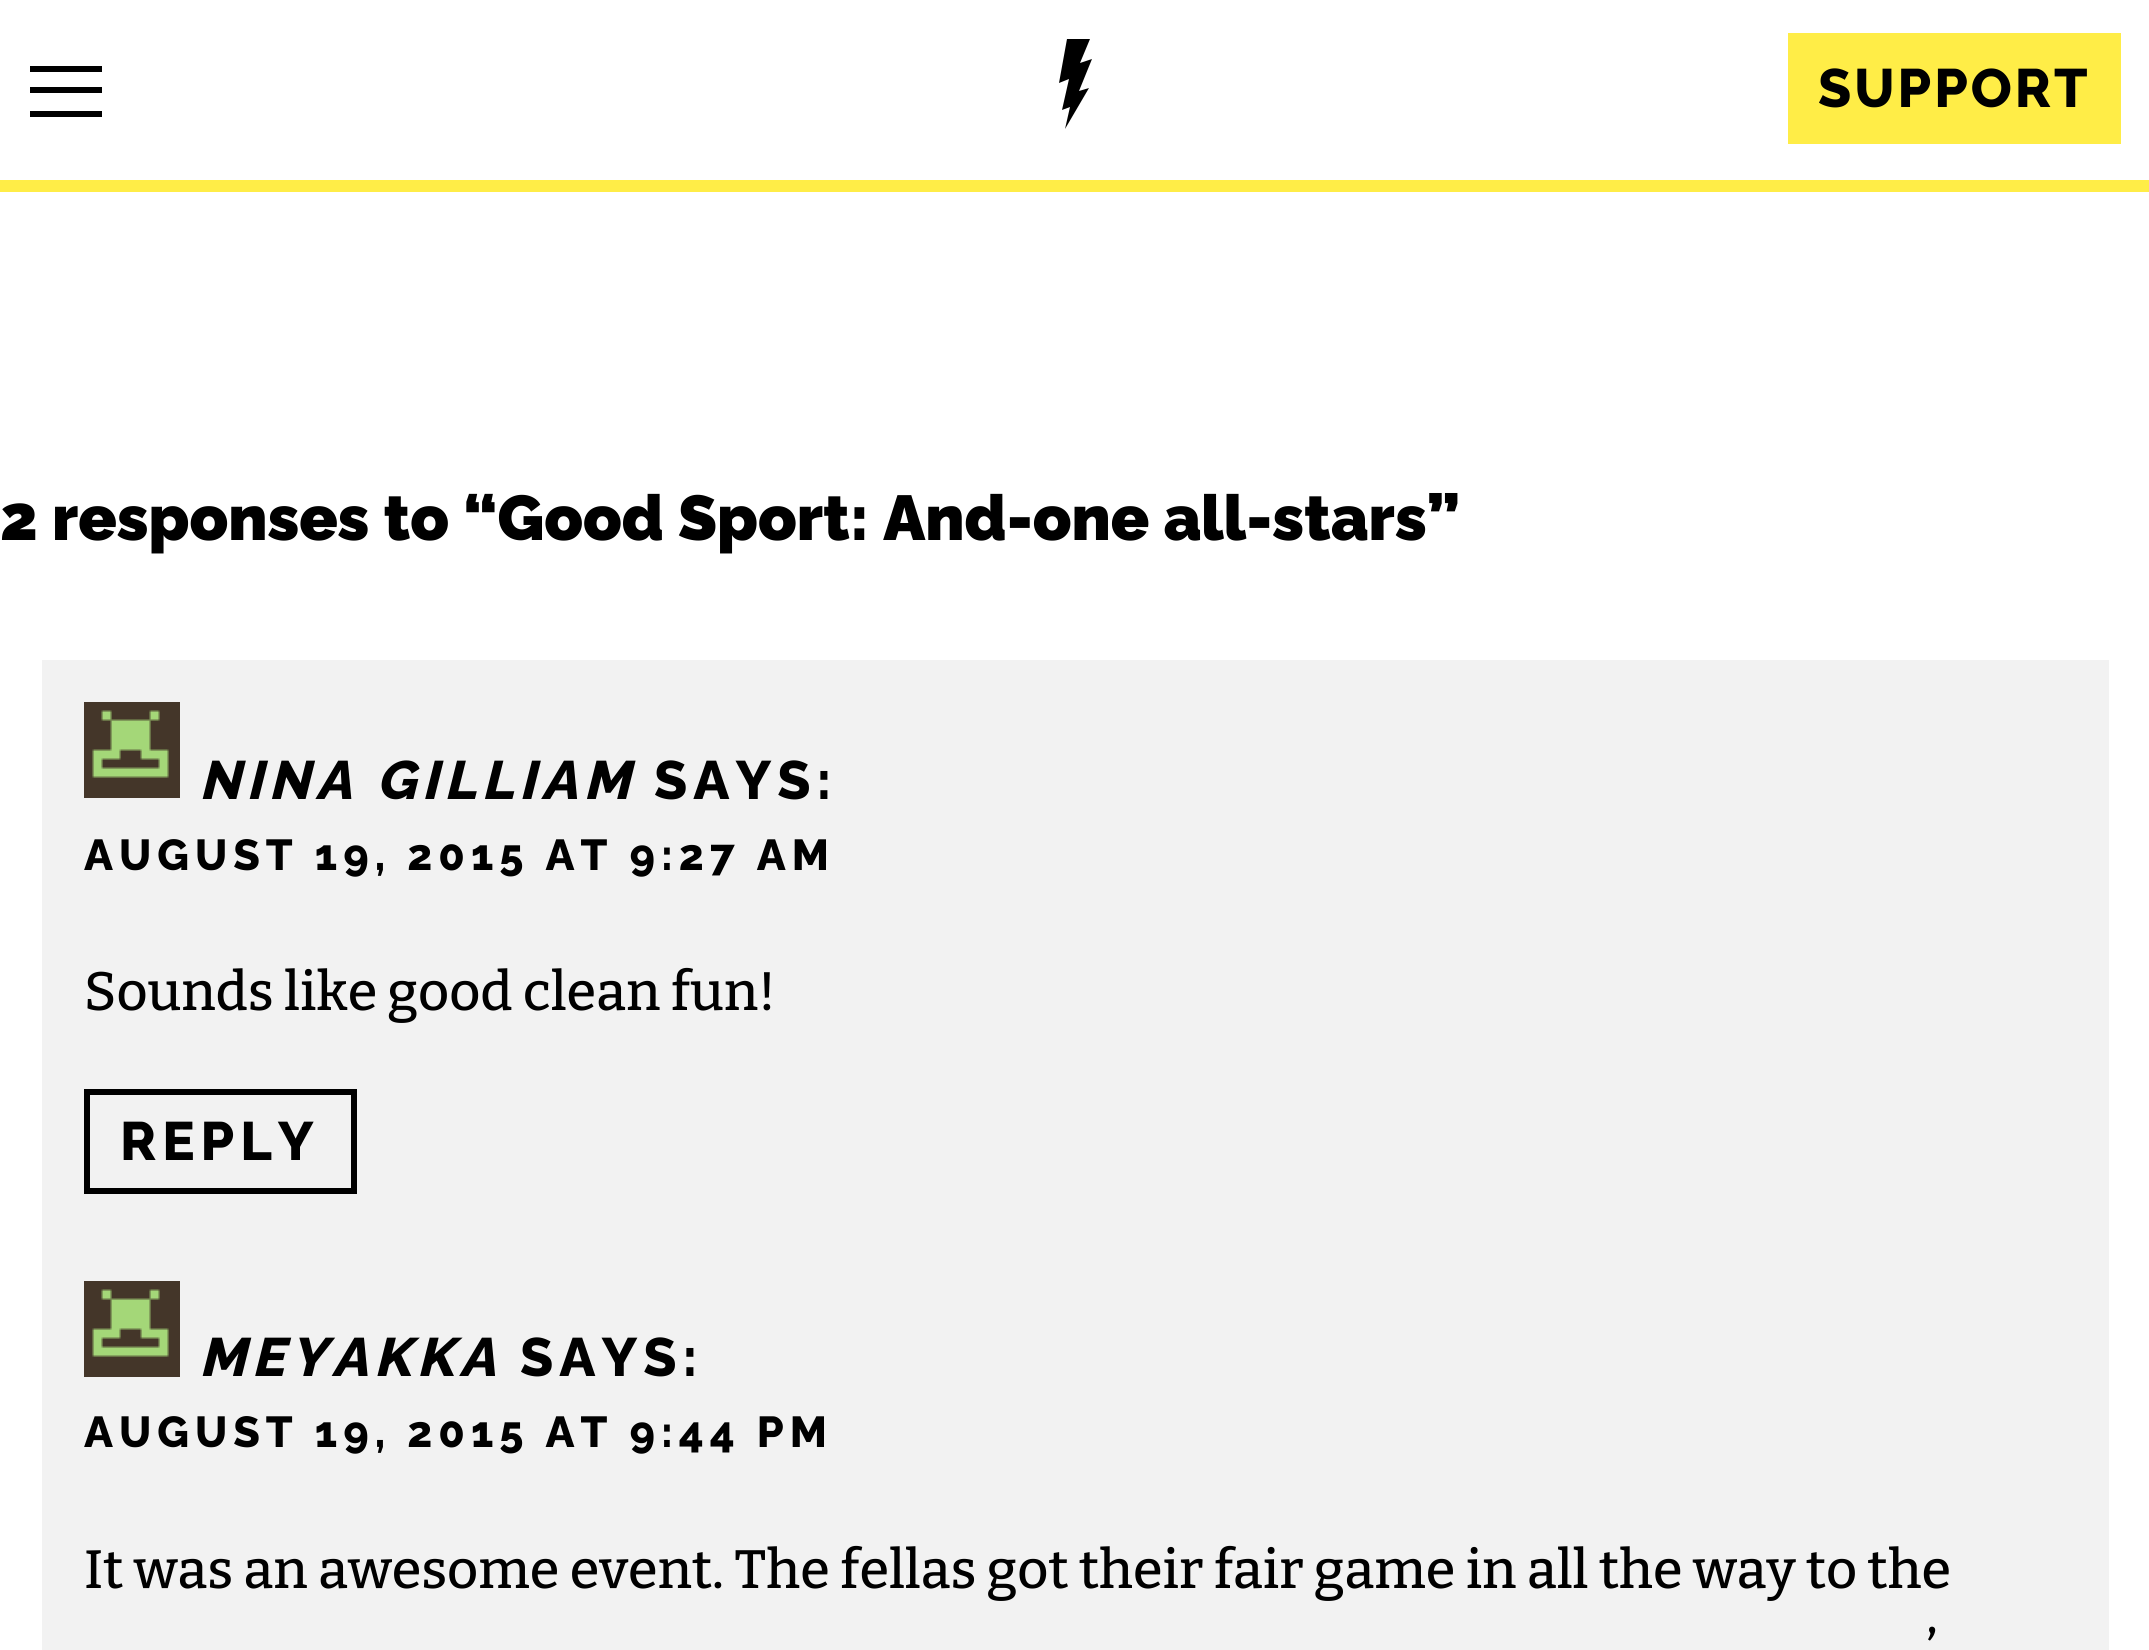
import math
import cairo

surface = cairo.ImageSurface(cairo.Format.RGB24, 2149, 1650)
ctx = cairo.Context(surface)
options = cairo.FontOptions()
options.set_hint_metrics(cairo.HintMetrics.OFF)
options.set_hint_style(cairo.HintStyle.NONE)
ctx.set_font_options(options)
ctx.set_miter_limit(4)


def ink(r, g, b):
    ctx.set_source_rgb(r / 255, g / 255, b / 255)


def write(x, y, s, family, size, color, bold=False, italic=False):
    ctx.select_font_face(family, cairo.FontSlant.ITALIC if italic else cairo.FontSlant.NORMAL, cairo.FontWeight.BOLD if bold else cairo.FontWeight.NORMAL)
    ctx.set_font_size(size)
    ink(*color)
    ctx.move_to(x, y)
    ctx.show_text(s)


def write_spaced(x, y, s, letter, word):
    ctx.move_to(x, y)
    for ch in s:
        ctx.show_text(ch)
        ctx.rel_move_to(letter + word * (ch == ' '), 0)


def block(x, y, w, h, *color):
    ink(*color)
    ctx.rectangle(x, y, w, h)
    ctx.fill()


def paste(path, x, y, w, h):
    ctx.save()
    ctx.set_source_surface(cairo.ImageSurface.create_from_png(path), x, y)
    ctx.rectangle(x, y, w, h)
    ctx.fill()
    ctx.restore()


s1 = dict(family="Raleway Black", size=63.2, color=(0, 0, 0))
s2 = dict(family="Bitter Medium", size=54, color=(0, 0, 0))

ink(255, 255, 255)
ctx.paint()
block(30, 66, 72, 6, 0, 0, 0)
block(30, 87, 72, 6, 0, 0, 0)
block(30, 111, 72, 6, 0, 0, 0)
ctx.new_path()
ctx.move_to(1065, 129)
ctx.line_to(1070, 107)
ctx.line_to(1062, 110)
ctx.line_to(1069, 79)
ctx.line_to(1059, 83)
ctx.line_to(1067, 39)
ctx.line_to(1090, 39)
ctx.line_to(1080, 63)
ctx.line_to(1092, 59)
ctx.line_to(1079, 91)
ctx.line_to(1089, 88)
ctx.close_path()
ctx.fill()
block(1788, 33, 333, 111, 255, 237, 71)
ctx.select_font_face("Raleway ExtraBold")
ctx.set_font_size(54)
ink(0, 0, 0)
write_spaced(1818, 107, "SUPPORT", 3, 0)
block(0, 180, 2149, 12, 255, 237, 71)
write(0, 540, "2 responses to “Good Sport: And-one all-stars”", **s1)
block(42, 660, 2067, 990, 242, 242, 242)
paste("pic1.png", 84, 702, 96, 96)
ctx.select_font_face("Raleway ExtraBold", cairo.FontSlant.ITALIC)
ctx.set_font_size(54)
ink(0, 0, 0)
write_spaced(199, 799, "NINA GILLIAM", 6, 0)
ctx.select_font_face("Raleway ExtraBold")
write_spaced(654, 799, "SAYS:", 6, 0)
ctx.set_font_size(43.25)
write_spaced(84, 870, "AUGUST 19, 2015 AT 9:27 AM", 6, 0)
write(84, 1010, "Sounds like good clean fun!", **s2)
ctx.rectangle(87, 1092, 267, 99)
ctx.set_line_width(6)
ctx.stroke()
ctx.select_font_face("Raleway ExtraBold")
write_spaced(120, 1160, "REPLY", 6, 0)
paste("pic1.png", 84, 1281, 96, 96)
ctx.select_font_face("Raleway ExtraBold", cairo.FontSlant.ITALIC)
write_spaced(199, 1376, "MEYAKKA", 6, 0)
ctx.select_font_face("Raleway ExtraBold")
write_spaced(520, 1376, "SAYS:", 6, 0)
ctx.set_font_size(43.25)
write_spaced(84, 1447, "AUGUST 19, 2015 AT 9:44 PM", 6, 0)
write(84, 1588, "It was an awesome event. The fellas got their fair game in all the way to the", **s2)
write(1926, 1669, "’", **s2)
surface.write_to_png("screenshot.png")
